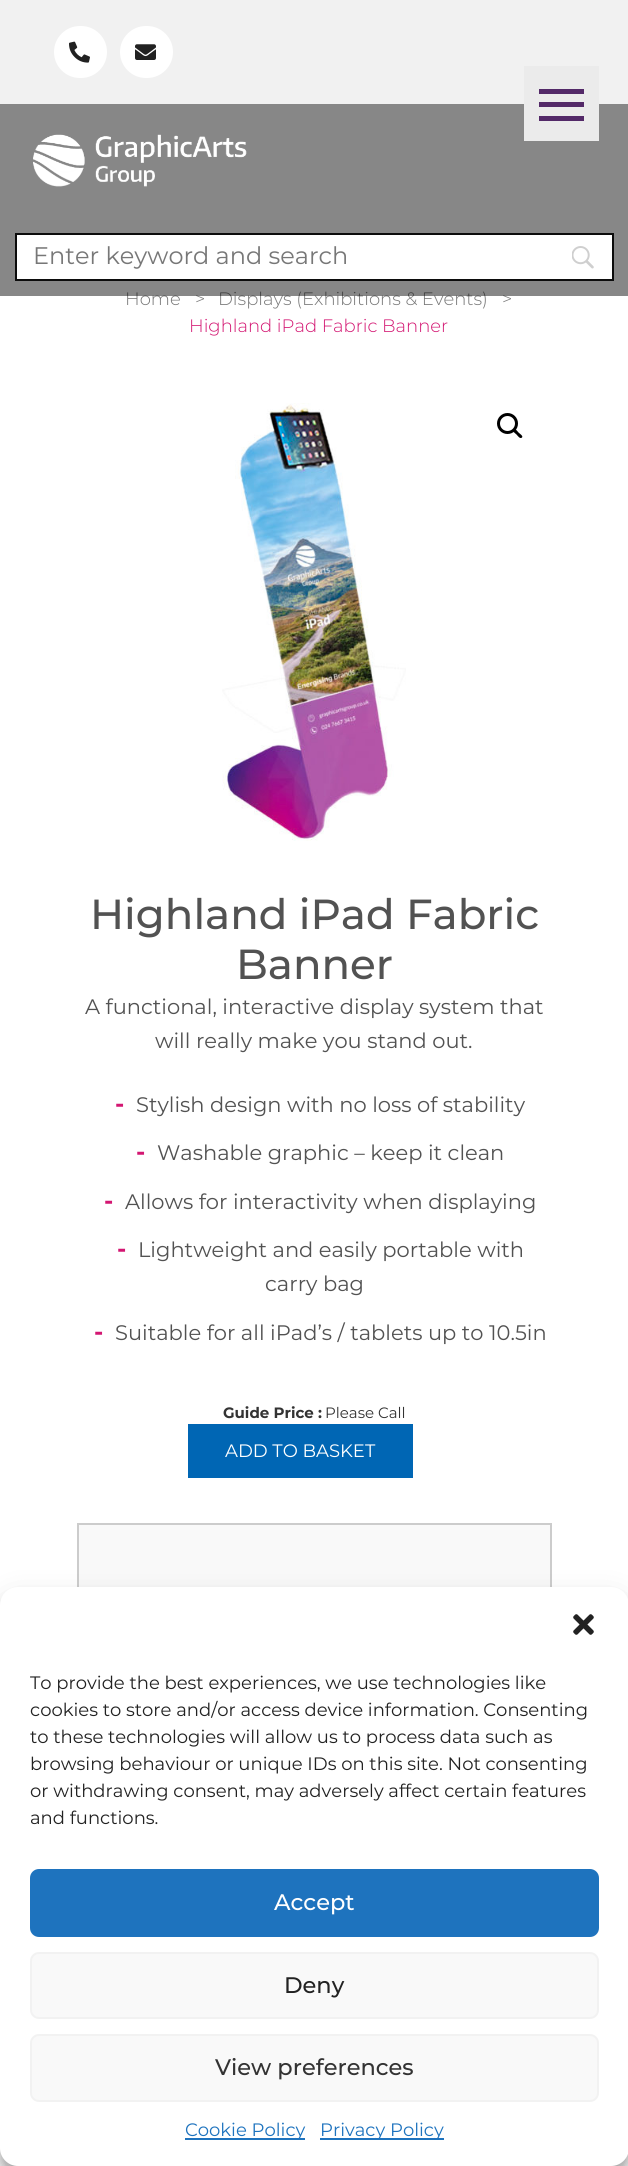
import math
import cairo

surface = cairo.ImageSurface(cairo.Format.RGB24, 628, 2166)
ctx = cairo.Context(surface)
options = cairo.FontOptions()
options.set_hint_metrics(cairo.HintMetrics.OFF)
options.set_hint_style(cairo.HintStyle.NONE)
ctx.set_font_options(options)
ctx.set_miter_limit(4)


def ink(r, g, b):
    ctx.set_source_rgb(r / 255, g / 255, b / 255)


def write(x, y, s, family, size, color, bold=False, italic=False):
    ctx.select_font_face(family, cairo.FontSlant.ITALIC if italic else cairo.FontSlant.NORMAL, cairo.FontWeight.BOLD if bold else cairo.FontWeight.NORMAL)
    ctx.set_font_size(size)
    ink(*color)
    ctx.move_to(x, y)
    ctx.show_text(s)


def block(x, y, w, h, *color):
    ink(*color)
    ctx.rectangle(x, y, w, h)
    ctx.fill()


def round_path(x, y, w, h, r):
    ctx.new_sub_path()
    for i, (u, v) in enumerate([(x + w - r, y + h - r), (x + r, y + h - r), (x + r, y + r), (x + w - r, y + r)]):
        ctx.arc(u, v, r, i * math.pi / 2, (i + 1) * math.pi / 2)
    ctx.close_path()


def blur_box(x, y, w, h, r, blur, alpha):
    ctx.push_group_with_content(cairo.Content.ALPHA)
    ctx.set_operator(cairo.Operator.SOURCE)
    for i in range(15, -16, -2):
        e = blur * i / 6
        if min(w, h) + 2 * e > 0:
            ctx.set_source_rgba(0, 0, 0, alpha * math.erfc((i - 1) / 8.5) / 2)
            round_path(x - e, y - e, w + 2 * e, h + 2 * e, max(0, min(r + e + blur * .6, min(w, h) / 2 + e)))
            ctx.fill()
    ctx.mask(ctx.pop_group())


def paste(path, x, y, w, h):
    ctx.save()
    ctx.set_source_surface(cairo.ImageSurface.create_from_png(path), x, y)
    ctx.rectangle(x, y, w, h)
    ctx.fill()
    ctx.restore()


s1 = dict(family="Montserrat Light", size=18, color=(119, 119, 119))
s2 = dict(family="Montserrat", size=24, color=(119, 119, 119))
s3 = dict(family="Montserrat Light", size=18, color=(211, 22, 114))
s4 = dict(family="Montserrat Medium", size=42, color=(82, 82, 82))
s5 = dict(family="Montserrat", size=21, color=(82, 82, 82))
s6 = dict(family="Montserrat", size=24, color=(211, 22, 114), bold=True)
s7 = dict(family="Montserrat", size=15, color=(51, 51, 51), bold=True)
s8 = dict(family="Montserrat", size=15, color=(51, 51, 51))
s9 = dict(family="Montserrat", size=18, color=(255, 255, 255))
s10 = dict(family="Montserrat", size=18, color=(34, 34, 34))
s11 = dict(family="Montserrat Medium", size=22.5, color=(255, 255, 255))
s12 = dict(family="Montserrat Medium", size=22.5, color=(34, 34, 34))
s13 = dict(family="Montserrat Medium", size=22.5, color=(51, 51, 51))
s14 = dict(family="Montserrat", size=18, color=(30, 115, 190))

ink(255, 255, 255)
ctx.paint()
block(0, 0, 628, 104, 241, 241, 241)
ink(255, 255, 255)
round_path(54, 26, 53, 52, 26)
ctx.fill()
paste("pic1.png", 69, 41, 21, 22)
round_path(120, 26, 53, 52, 26)
ctx.fill()
paste("pic2.png", 135, 44, 21, 16)
write(125, 305, "Home", **s1)
write(195, 305, ">", **s1)
write(218, 305, "Displays (Exhibitions & Events)", **s1)
write(502, 305, ">", **s1)
ctx.set_source_rgba(0, 0, 0, 0.47)
ctx.rectangle(0, 104, 628, 192)
ctx.fill()
block(524, 66, 75, 75, 235, 235, 235)
block(539, 89, 45, 5, 83, 41, 104)
block(539, 102, 45, 5, 83, 41, 104)
block(539, 116, 45, 5, 83, 41, 104)
paste("pic3.png", 33, 134, 214, 53)
block(17, 235, 595, 44, 255, 255, 255)
paste("pic4.png", 572, 246, 22, 23)
ctx.rectangle(16, 234, 597, 46)
ink(12, 12, 12)
ctx.stroke()
write(33, 264, "Enter keyword and search", **s2)
write(189, 332, "Highland iPad Fabric Banner", **s3)
paste("pic5.png", 222, 403, 184, 438)
ctx.arc(507.5, 423.5, 9, 0, 2 * math.pi)
ink(0, 0, 0)
ctx.set_line_width(3)
ctx.stroke()
ctx.new_path()
ctx.move_to(513.5, 429.5)
ctx.curve_to(515, 427.5, 517.5, 431.5, 518.5, 432.5)
ctx.curve_to(519.5, 433.5, 523.5, 436, 522, 437.5)
ctx.curve_to(520, 439.5, 517.5, 435.5, 516.5, 434.5)
ctx.curve_to(515.5, 433.5, 511.5, 431, 513.5, 429.5)
ctx.close_path()
ctx.fill()
write(90, 929, "Highland iPad Fabric", **s4)
write(236, 979, "Banner", **s4)
write(85, 1014, "A functional, interactive display system that", **s5)
write(155, 1048, "will really make you stand out.", **s5)
write(115, 1112, "-", **s6)
write(136, 1112, "Stylish design with no loss of stability", **s5)
write(136, 1160, "-", **s6)
write(157, 1160, "Washable graphic – keep it clean", **s5)
write(104, 1209, "-", **s6)
write(125, 1209, "Allows for interactivity when displaying", **s5)
write(117, 1257, "-", **s6)
write(138, 1257, "Lightweight and easily portable with", **s5)
write(265, 1291, "carry bag", **s5)
write(94, 1340, "-", **s6)
write(115, 1340, "Suitable for all iPad’s / tablets up to 10.5in", **s5)
write(223, 1418, "Guide Price :", **s7)
write(325, 1418, "Please Call", **s8)
block(188, 1424, 225, 54, 0, 102, 180)
write(225, 1457, "ADD TO BASKET", **s9)
block(79, 1525, 471, 62, 249, 249, 249)
ctx.rectangle(78, 1524, 473, 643)
ink(204, 204, 204)
ctx.set_line_width(2)
ctx.stroke()
ink(0, 0, 0)
blur_box(0, 1596, 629, 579, 18, 4.5, 0.23)
blur_box(0, 1602, 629, 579, 18, 15, 0.19)
ink(255, 255, 255)
round_path(0, 1587, 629, 579, 18)
ctx.fill()
paste("pic6.png", 573, 1614, 21, 21)
write(30, 1689, "To provide the best experiences, we use technologies like", **s10)
write(30, 1716, "cookies to store and/or access device information. Consenting", **s10)
write(30, 1743, "to these technologies will allow us to process data such as", **s10)
write(30, 1770, "browsing behaviour or unique IDs on this site. Not consenting", **s10)
write(30, 1797, "or withdrawing consent, may adversely affect certain features", **s10)
write(30, 1824, "and functions.", **s10)
ink(30, 115, 190)
round_path(31, 1870, 567, 66, 8)
ctx.fill_preserve()
ctx.stroke()
write(274, 1910, "Accept", **s11)
ink(249, 249, 249)
round_path(31, 1953, 567, 65, 8)
ctx.fill_preserve()
ink(242, 242, 242)
ctx.stroke()
write(284, 1993, "Deny", **s12)
ink(249, 249, 249)
round_path(31, 2035, 567, 66, 8)
ctx.fill_preserve()
ink(242, 242, 242)
ctx.stroke()
write(215, 2075, "View preferences", **s13)
block(185, 2138, 120, 2, 30, 115, 190)
write(185, 2136, "Cookie Policy", **s14)
block(320, 2138, 124, 2, 30, 115, 190)
write(320, 2136, "Privacy Policy", **s14)
surface.write_to_png("screenshot.png")
